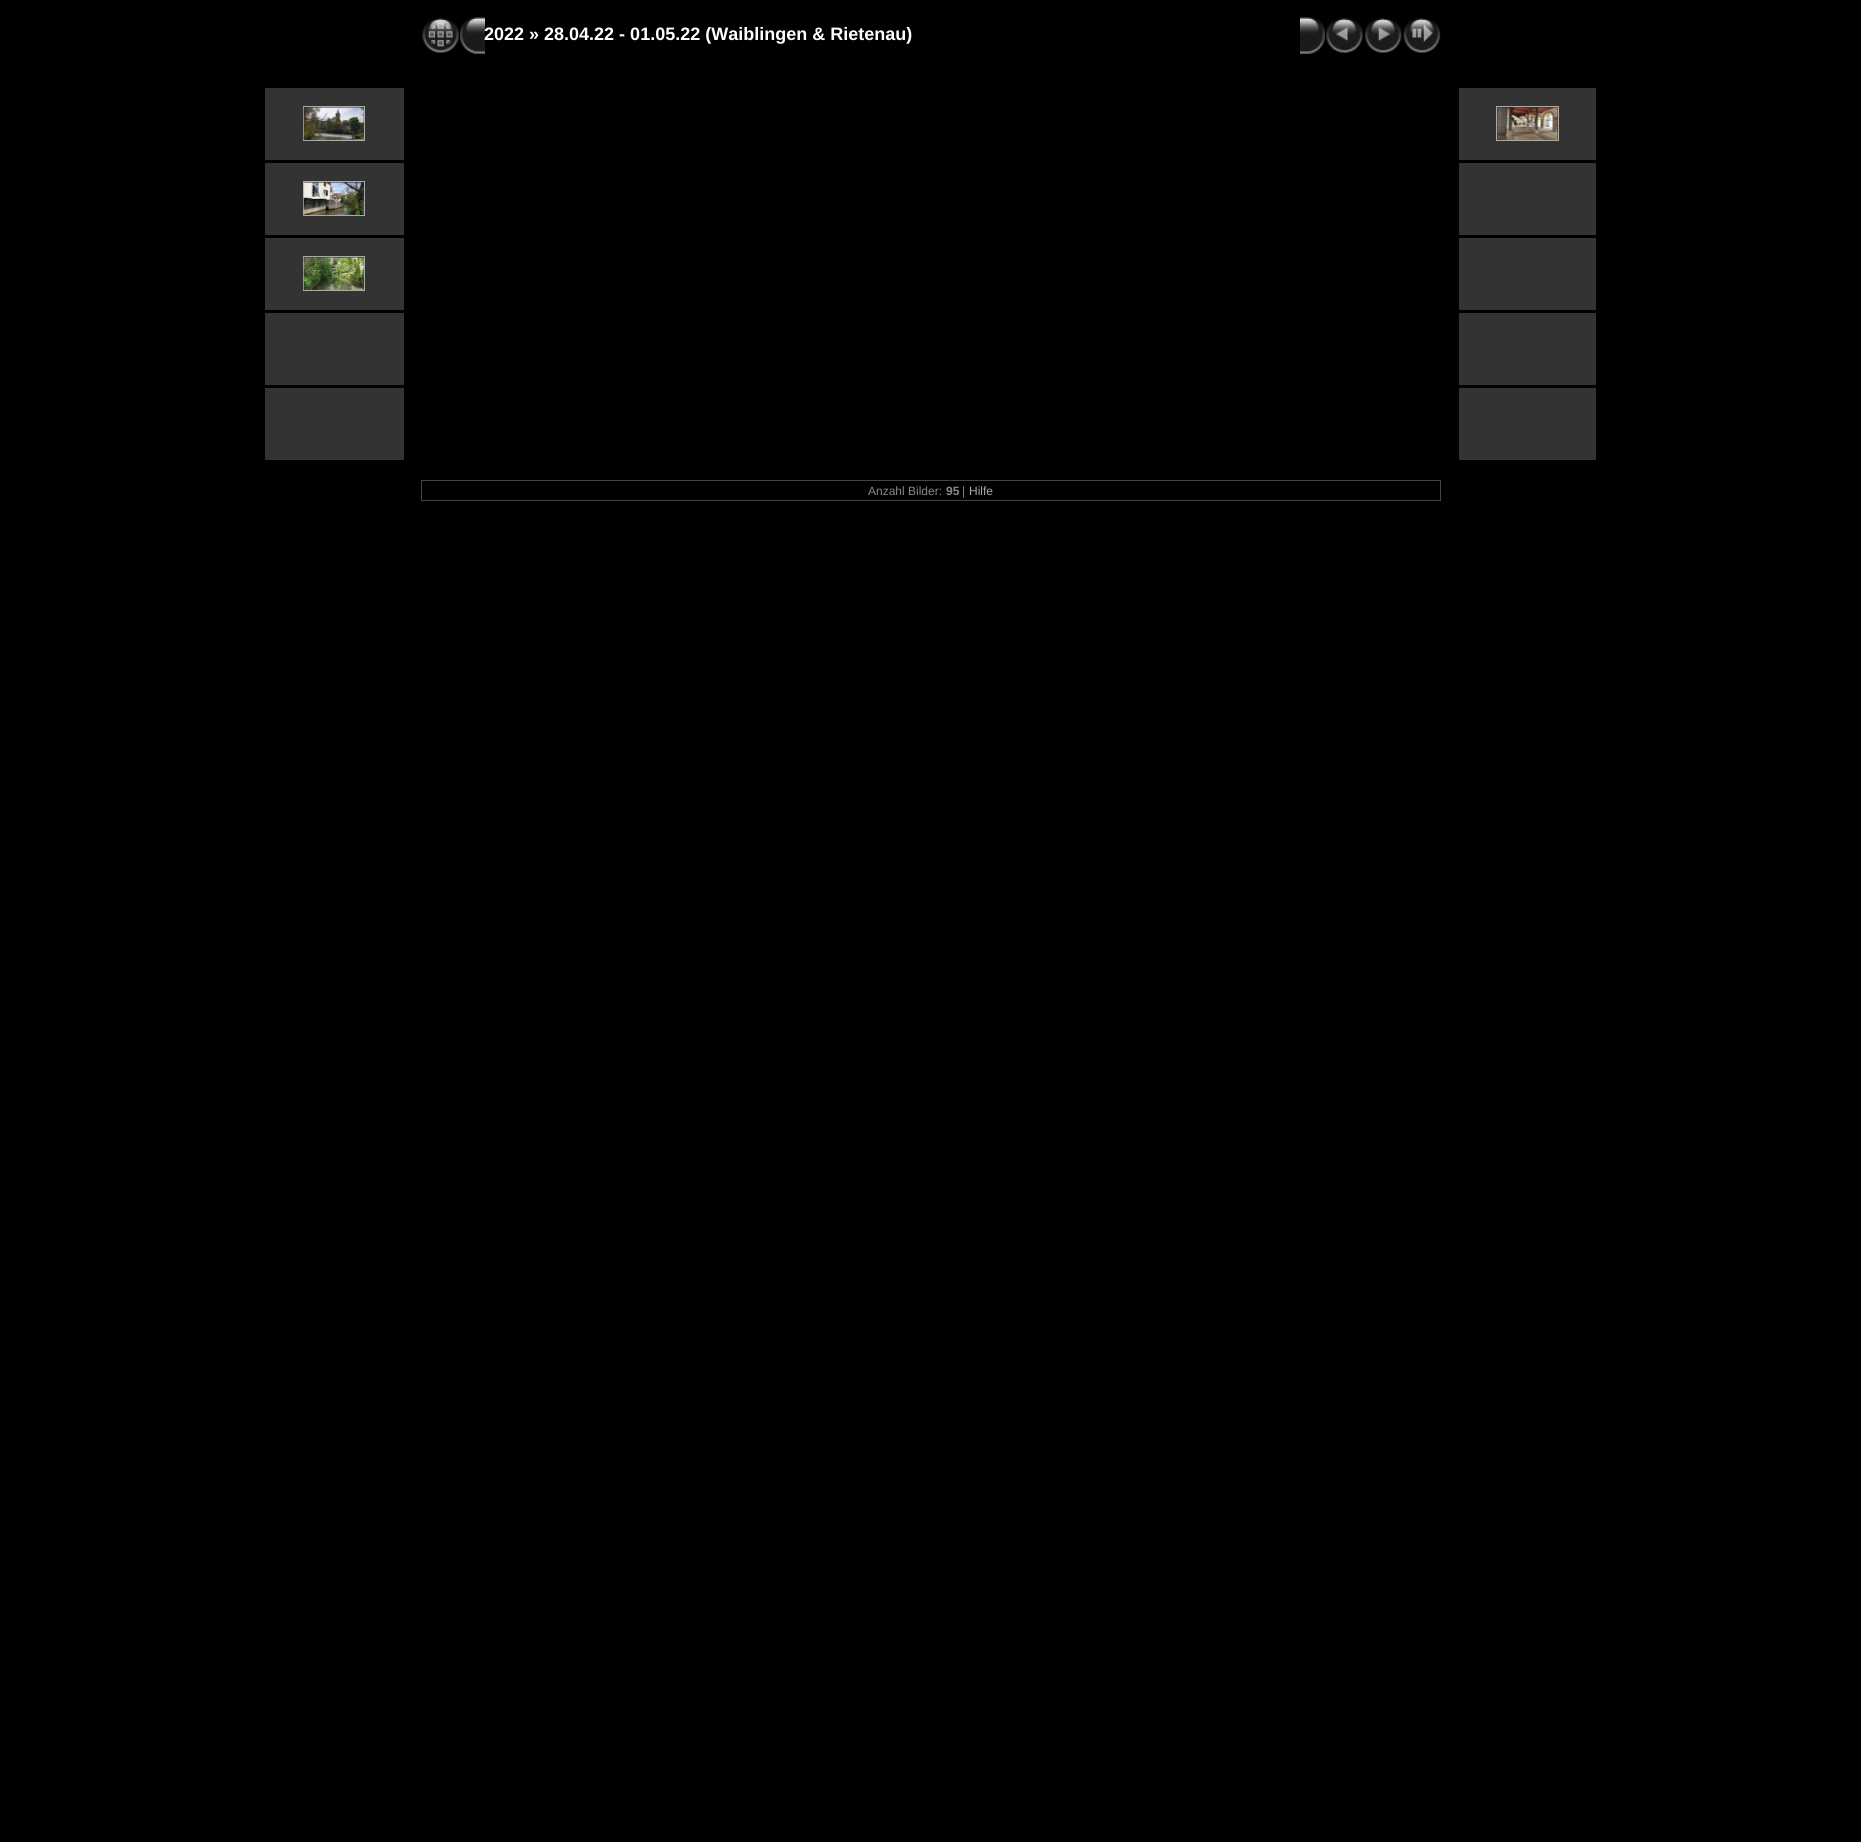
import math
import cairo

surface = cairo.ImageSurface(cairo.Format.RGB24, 1861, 1842)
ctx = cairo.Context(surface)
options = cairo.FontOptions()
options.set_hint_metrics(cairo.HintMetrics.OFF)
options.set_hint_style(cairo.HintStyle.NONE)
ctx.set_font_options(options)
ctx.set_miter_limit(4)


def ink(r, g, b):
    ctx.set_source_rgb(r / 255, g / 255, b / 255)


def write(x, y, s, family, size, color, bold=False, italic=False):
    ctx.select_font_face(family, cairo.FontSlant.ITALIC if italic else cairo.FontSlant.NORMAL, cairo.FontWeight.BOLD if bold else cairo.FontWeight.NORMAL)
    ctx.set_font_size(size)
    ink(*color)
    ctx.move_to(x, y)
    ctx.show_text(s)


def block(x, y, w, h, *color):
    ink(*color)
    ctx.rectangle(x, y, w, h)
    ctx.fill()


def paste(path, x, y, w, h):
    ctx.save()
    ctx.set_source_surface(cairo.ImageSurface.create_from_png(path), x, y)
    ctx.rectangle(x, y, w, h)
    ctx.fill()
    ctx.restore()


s1 = dict(family="Liberation Sans", size=18, color=(255, 255, 255), bold=True)
s2 = dict(family="Liberation Sans", size=12, color=(136, 136, 136))
s3 = dict(family="Liberation Sans", size=12, color=(136, 136, 136), bold=True)
s4 = dict(family="Liberation Sans", size=12, color=(170, 170, 170))

ink(0, 0, 0)
ctx.paint()
paste("pic1.png", 422, 18, 37, 35)
paste("pic2.png", 460, 17, 25, 37)
write(484, 40, "2022 » 28.04.22 - 01.05.22 (Waiblingen & Rietenau)", **s1)
paste("pic3.png", 1300, 17, 25, 37)
paste("pic4.png", 1326, 18, 37, 35)
paste("pic5.png", 1365, 18, 37, 35)
paste("pic6.png", 1403, 18, 38, 35)
block(265, 88, 139, 72, 51, 51, 51)
ctx.rectangle(303.5, 106.5, 61, 34)
ink(170, 170, 170)
ctx.set_line_width(1)
ctx.stroke()
paste("pic7.png", 303, 107, 61, 33)
block(265, 163, 139, 72, 51, 51, 51)
ctx.rectangle(303.5, 181.5, 61, 34)
ink(170, 170, 170)
ctx.stroke()
paste("pic8.png", 303, 182, 61, 33)
block(265, 238, 139, 72, 51, 51, 51)
ctx.rectangle(303.5, 256.5, 61, 34)
ink(170, 170, 170)
ctx.stroke()
paste("pic9.png", 303, 257, 61, 33)
block(265, 313, 139, 72, 51, 51, 51)
block(265, 388, 139, 72, 51, 51, 51)
block(1459, 88, 137, 72, 51, 51, 51)
ctx.rectangle(1496.5, 106.5, 62, 34)
ink(170, 170, 170)
ctx.stroke()
paste("pic10.png", 1497, 107, 61, 33)
block(1459, 163, 137, 72, 51, 51, 51)
block(1459, 238, 137, 72, 51, 51, 51)
block(1459, 313, 137, 72, 51, 51, 51)
block(1459, 388, 137, 72, 51, 51, 51)
block(421, 480, 1020, 1, 68, 68, 68)
block(1440, 480, 1, 21, 68, 68, 68)
block(421, 500, 1020, 1, 68, 68, 68)
block(421, 480, 1, 21, 68, 68, 68)
write(868, 495, "Anzahl Bilder:", **s2)
write(946, 495, "95", **s3)
write(962, 495, "|", **s2)
write(969, 495, "Hilfe", **s4)
surface.write_to_png("screenshot.png")
